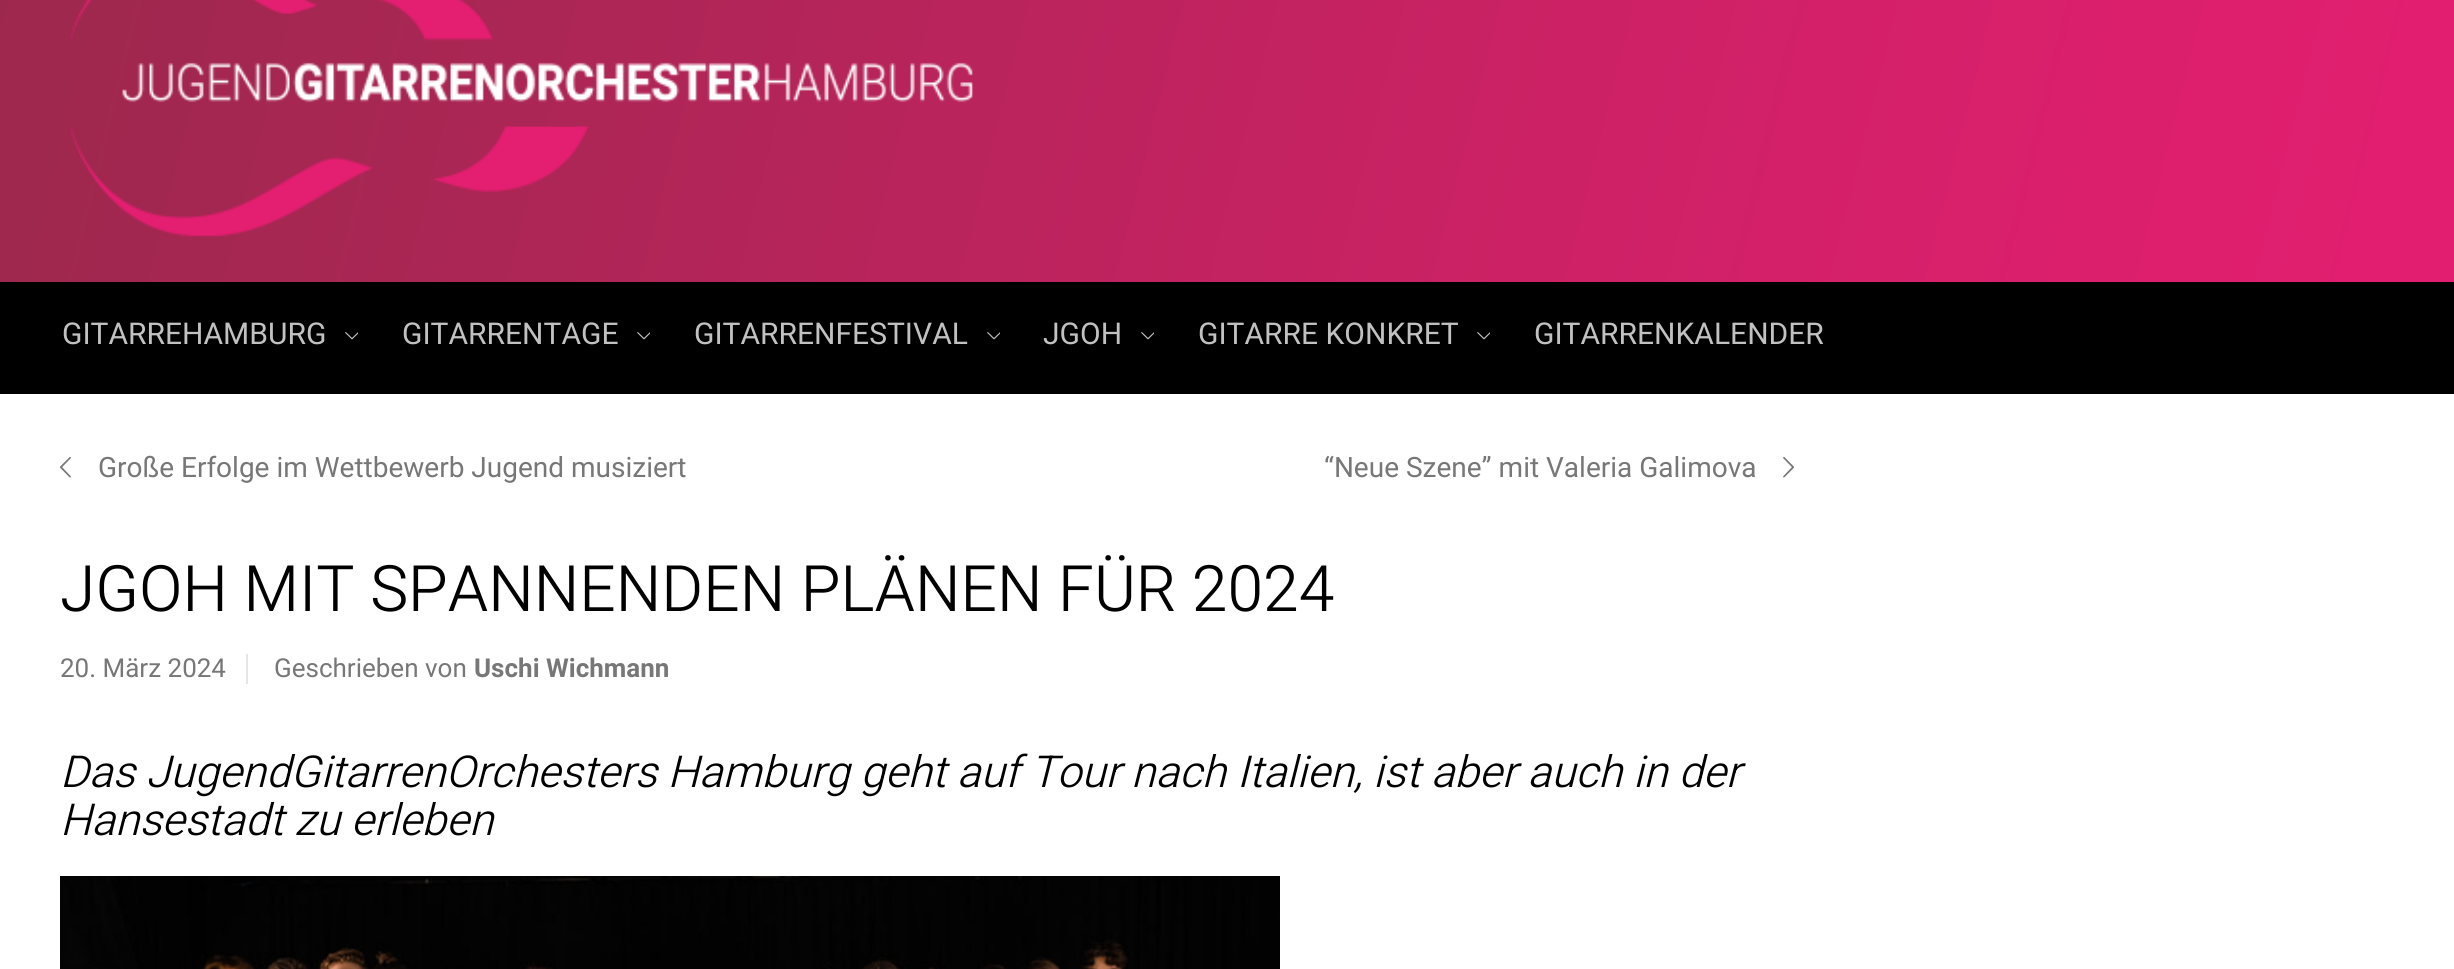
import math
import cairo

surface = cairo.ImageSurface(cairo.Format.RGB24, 2454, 969)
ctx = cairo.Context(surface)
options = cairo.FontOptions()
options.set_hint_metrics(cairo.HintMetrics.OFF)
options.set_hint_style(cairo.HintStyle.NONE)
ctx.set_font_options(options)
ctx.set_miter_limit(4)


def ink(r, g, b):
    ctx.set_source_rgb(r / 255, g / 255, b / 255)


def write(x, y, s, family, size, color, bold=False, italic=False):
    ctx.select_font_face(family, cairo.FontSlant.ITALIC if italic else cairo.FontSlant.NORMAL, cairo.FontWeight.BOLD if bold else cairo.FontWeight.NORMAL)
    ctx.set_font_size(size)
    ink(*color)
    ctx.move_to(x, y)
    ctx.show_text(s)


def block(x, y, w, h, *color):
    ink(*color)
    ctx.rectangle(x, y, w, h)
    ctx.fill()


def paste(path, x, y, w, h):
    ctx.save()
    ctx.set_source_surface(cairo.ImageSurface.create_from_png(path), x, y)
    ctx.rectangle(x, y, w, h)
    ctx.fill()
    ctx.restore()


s1 = dict(family="Heebo", size=30, color=(193, 193, 193))
s2 = dict(family="Roboto", size=28, color=(119, 119, 119))
s3 = dict(family="Heebo Light", size=64, color=(0, 0, 0))
s4 = dict(family="Roboto", size=26, color=(119, 119, 119))
s5 = dict(family="Roboto", size=26, color=(119, 119, 119), bold=True)
s6 = dict(family="Heebo Light", size=44, color=(0, 0, 0), italic=True)

ink(255, 255, 255)
ctx.paint()
paste("pic1.png", 0, 0, 2454, 282)
block(0, 282, 2454, 112, 0, 0, 0)
write(62, 344, "GITARREHAMBURG", **s1)
paste("pic2.png", 345, 332, 13, 8)
write(402, 344, "GITARRENTAGE", **s1)
paste("pic2.png", 637, 332, 13, 8)
write(694, 344, "GITARRENFESTIVAL", **s1)
paste("pic2.png", 987, 332, 13, 8)
write(1043, 344, "JGOH", **s1)
paste("pic2.png", 1141, 332, 13, 8)
write(1198, 344, "GITARRE KONKRET", **s1)
paste("pic2.png", 1477, 332, 13, 8)
write(1534, 344, "GITARRENKALENDER", **s1)
paste("pic3.png", 59, 457, 12, 21)
write(98, 477, "Große Erfolge im Wettbewerb Jugend musiziert", **s2)
write(1324, 477, "“Neue Szene” mit Valeria Galimova", **s2)
paste("pic4.png", 1783, 457, 12, 21)
write(60, 611, "JGOH MIT SPANNENDEN PLÄNEN FÜR 2024", **s3)
write(60, 677, "20. März 2024", **s4)
block(246, 654, 2, 30, 230, 230, 230)
write(274, 677, "Geschrieben von", **s4)
write(474, 677, "Uschi Wichmann", **s5)
write(60, 787, "Das JugendGitarrenOrchesters Hamburg geht auf Tour nach Italien, ist aber auch in der", **s6)
write(60, 835, "Hansestadt zu erleben", **s6)
paste("pic5.png", 60, 876, 1220, 93)
surface.write_to_png("screenshot.png")
